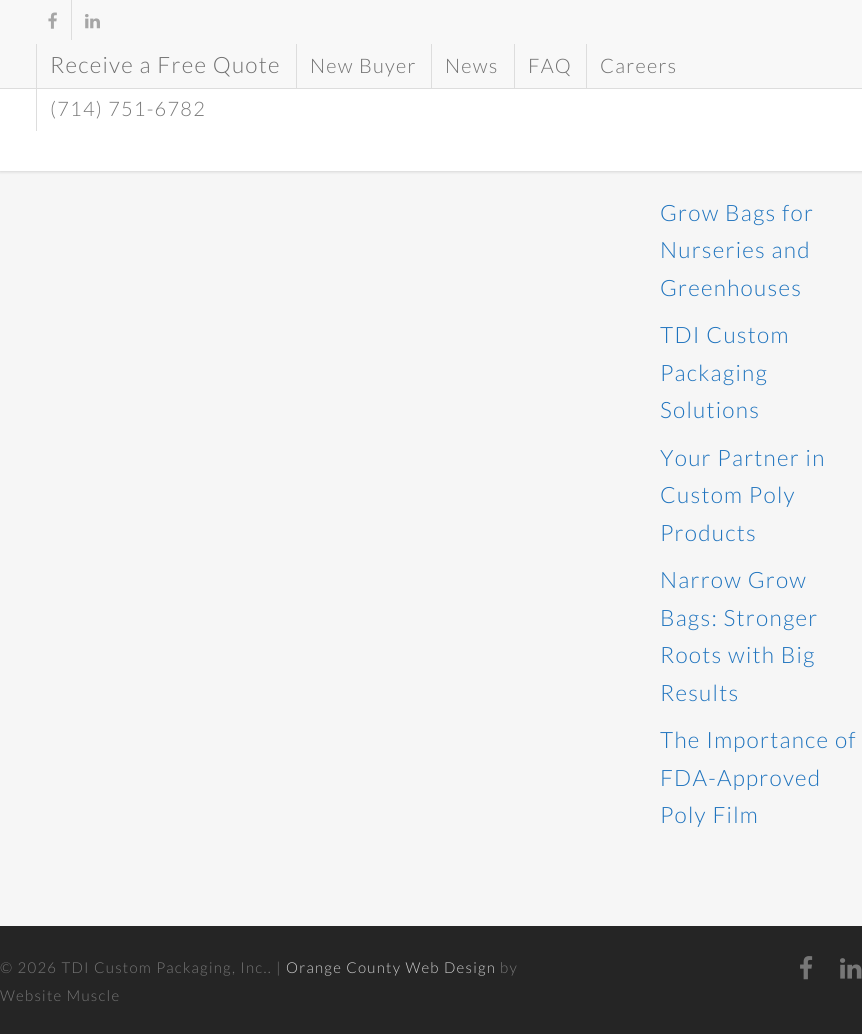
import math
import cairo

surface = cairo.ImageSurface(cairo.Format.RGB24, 862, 1034)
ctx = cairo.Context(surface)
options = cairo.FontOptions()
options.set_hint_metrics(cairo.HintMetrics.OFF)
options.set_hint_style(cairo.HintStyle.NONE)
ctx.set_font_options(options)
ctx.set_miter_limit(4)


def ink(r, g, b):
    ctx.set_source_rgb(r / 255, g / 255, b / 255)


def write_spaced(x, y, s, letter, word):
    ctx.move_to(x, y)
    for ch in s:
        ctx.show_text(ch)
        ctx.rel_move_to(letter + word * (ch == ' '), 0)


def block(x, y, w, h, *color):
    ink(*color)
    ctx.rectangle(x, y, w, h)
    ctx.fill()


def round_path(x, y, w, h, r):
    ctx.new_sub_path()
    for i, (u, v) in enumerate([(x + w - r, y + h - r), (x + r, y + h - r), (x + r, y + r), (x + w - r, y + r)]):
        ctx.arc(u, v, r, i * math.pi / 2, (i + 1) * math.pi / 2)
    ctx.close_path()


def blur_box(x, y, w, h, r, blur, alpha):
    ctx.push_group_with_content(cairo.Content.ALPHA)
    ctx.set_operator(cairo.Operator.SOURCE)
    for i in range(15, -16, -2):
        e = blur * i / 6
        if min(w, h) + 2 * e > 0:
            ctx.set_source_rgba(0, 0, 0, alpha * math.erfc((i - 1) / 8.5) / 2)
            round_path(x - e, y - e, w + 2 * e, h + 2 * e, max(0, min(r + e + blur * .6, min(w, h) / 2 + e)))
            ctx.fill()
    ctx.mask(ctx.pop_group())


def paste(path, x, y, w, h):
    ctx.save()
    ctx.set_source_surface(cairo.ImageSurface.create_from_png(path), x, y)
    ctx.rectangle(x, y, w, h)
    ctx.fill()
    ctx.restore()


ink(37, 37, 37)
ctx.paint()
block(0, 171, 862, 755, 246, 246, 246)
ink(0, 0, 0)
blur_box(0, 41, 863, 130, 0, 2, 0.22)
block(0, 89, 862, 82, 255, 255, 255)
block(0, 0, 862, 88, 248, 248, 248)
block(0, 88, 862, 1, 221, 221, 221)
paste("pic1.png", 48, 12, 9, 17)
block(71, 0, 1, 40, 221, 221, 221)
paste("pic2.png", 85, 14, 15, 15)
block(36, 44, 1, 87, 221, 221, 221)
ctx.select_font_face("Lato Light")
ctx.set_font_size(22.5)
ink(112, 112, 112)
write_spaced(50, 73, "Receive a Free Quote", 1.25, 0)
block(296, 44, 1, 44, 221, 221, 221)
ctx.set_font_size(20)
ink(112, 112, 112)
write_spaced(310, 73, "New Buyer", 1.25, 0)
block(431, 44, 1, 44, 221, 221, 221)
ink(112, 112, 112)
write_spaced(445, 73, "News", 1.25, 0)
block(514, 44, 1, 44, 221, 221, 221)
ink(112, 112, 112)
write_spaced(528, 73, "FAQ", 1.25, 0)
block(586, 44, 1, 44, 221, 221, 221)
ink(112, 112, 112)
write_spaced(600, 73, "Careers", 1.25, 0)
ink(119, 119, 119)
write_spaced(50, 116, "(714) 751-6782", 1.25, 0)
ctx.set_font_size(22.5)
ink(30, 115, 190)
write_spaced(660, 221, "Grow Bags for", 1.25, 0)
write_spaced(660, 258, "Nurseries and", 1.25, 0)
write_spaced(660, 296, "Greenhouses", 1.25, 0)
write_spaced(660, 343, "TDI Custom", 1.25, 0)
write_spaced(660, 381, "Packaging", 1.25, 0)
write_spaced(660, 418, "Solutions", 1.25, 0)
write_spaced(660, 466, "Your Partner in", 1.25, 0)
write_spaced(660, 503, "Custom Poly", 1.25, 0)
write_spaced(660, 541, "Products", 1.25, 0)
write_spaced(660, 588, "Narrow Grow", 1.25, 0)
write_spaced(660, 626, "Bags: Stronger", 1.25, 0)
write_spaced(660, 663, "Roots with Big", 1.25, 0)
write_spaced(660, 701, "Results", 1.25, 0)
write_spaced(660, 748, "The Importance of", 1.25, 0)
write_spaced(660, 786, "FDA-Approved", 1.25, 0)
write_spaced(660, 823, "Poly Film", 1.25, 0)
ctx.set_font_size(15)
ink(119, 119, 119)
write_spaced(0, 973, "© 2026 TDI Custom Packaging, Inc.. |", 1.25, 0)
ink(204, 204, 204)
write_spaced(286, 973, "Orange County Web Design", 1.25, 0)
ink(119, 119, 119)
write_spaced(500, 973, "by", 1.25, 0)
write_spaced(0, 1001, "Website Muscle", 1.25, 0)
paste("pic3.png", 800, 956, 13, 24)
paste("pic4.png", 840, 958, 22, 21)
surface.write_to_png("screenshot.png")
